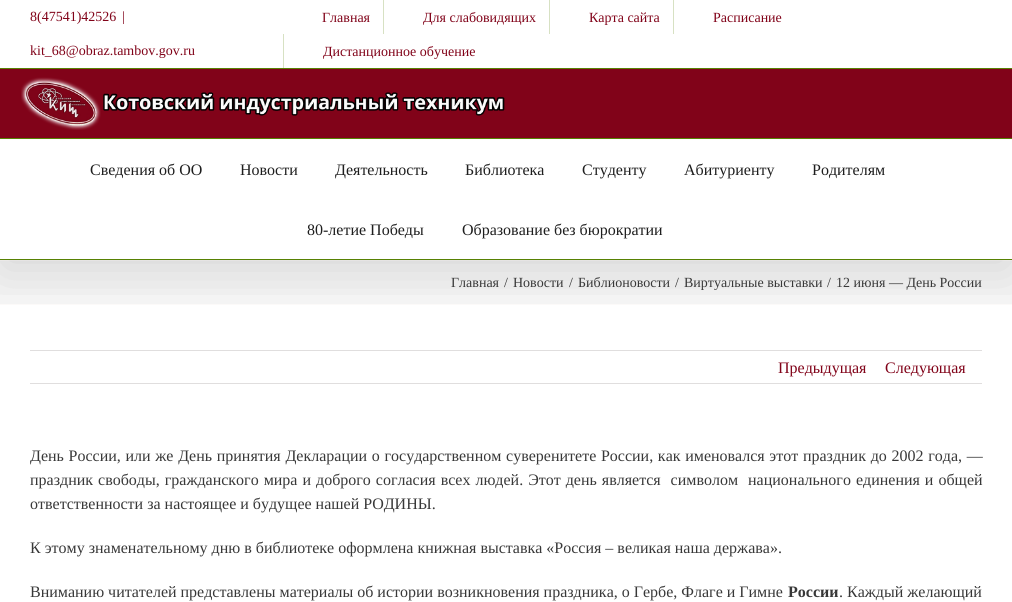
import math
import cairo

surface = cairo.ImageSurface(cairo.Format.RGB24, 1012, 602)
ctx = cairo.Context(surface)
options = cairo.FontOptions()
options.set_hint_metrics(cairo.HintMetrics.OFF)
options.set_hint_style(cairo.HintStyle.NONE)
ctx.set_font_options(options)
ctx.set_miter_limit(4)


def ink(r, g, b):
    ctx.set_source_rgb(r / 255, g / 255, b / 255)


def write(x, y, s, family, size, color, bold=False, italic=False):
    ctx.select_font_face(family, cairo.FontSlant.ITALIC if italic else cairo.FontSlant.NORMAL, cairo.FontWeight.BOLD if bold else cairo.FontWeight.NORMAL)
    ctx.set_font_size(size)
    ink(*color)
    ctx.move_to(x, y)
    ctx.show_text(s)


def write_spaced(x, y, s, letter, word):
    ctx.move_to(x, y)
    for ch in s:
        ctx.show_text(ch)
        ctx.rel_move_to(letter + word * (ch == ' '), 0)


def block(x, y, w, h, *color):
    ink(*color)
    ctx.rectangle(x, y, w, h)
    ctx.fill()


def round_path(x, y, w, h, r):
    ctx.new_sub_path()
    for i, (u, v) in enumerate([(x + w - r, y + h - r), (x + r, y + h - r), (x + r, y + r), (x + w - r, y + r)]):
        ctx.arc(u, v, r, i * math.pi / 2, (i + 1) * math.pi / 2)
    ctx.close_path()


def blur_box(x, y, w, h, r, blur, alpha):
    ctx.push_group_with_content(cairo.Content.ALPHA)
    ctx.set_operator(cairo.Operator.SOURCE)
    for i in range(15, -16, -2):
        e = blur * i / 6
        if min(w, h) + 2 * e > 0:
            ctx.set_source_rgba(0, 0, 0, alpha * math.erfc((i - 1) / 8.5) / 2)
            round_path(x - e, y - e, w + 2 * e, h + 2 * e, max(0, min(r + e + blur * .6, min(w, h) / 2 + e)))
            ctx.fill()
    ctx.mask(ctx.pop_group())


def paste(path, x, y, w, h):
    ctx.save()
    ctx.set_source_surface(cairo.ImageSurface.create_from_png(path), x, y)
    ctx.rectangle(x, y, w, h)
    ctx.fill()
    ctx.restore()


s1 = dict(family="Liberation Serif", size=14, color=(129, 3, 25))
s2 = dict(family="Liberation Serif", size=16, color=(30, 30, 30))
s3 = dict(family="Liberation Serif", size=14, color=(56, 56, 56))
s4 = dict(family="Liberation Serif", size=16, color=(129, 3, 25))
s5 = dict(family="Liberation Serif", size=16, color=(56, 56, 56))
s6 = dict(family="Liberation Serif", size=16, color=(56, 56, 56), bold=True)

ink(255, 255, 255)
ctx.paint()
block(0, 261, 1012, 43, 244, 244, 244)
block(0, 260, 1012, 1, 252, 250, 249)
block(0, 304, 1012, 1, 252, 250, 249)
ctx.save()
ctx.rectangle(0, 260, 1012, 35)
ctx.clip()
ink(0, 0, 0)
blur_box(2, 12, 1008, 256, 0, 25, 0.14)
ctx.restore()
block(0, 68, 1012, 1, 87, 129, 3)
write(30, 21, "8(47541)42526", **s1)
write(122, 21, "|", **s1)
write(30, 55, "kit_68@obraz.tambov.gov.ru", **s1)
write(322, 22, "Главная", **s1)
block(383, 0, 1, 34, 215, 225, 195)
write(423, 22, "Для слабовидящих", **s1)
block(549, 0, 1, 34, 215, 225, 195)
write(589, 22, "Карта сайта", **s1)
block(673, 0, 1, 34, 215, 225, 195)
write(713, 22, "Расписание", **s1)
block(283, 34, 1, 34, 215, 225, 195)
write(323, 56, "Дистанционное обучение", **s1)
block(0, 69, 1012, 69, 129, 3, 25)
block(0, 138, 1012, 1, 87, 129, 3)
paste("pic1.png", 21, 77, 484, 53)
block(0, 259, 1012, 1, 87, 129, 3)
write(90, 175, "Сведения об ОО", **s2)
write(240, 175, "Новости", **s2)
ctx.save()
ctx.rectangle(335, 139, 130, 60)
ctx.clip()
write(335, 175, "Деятельность", **s2)
ctx.restore()
write(465, 175, "Библиотека", **s2)
write(582, 175, "Студенту", **s2)
write(684, 175, "Абитуриенту", **s2)
write(812, 175, "Родителям", **s2)
write(307, 235, "80-летие Победы", **s2)
write(462, 235, "Образование без бюрократии", **s2)
write(451, 287, "Главная", **s3)
write(504, 287, "/", **s3)
write(513, 287, "Новости", **s3)
write(569, 287, "/", **s3)
write(578, 287, "Библионовости", **s3)
write(675, 287, "/", **s3)
write(684, 287, "Виртуальные выставки", **s3)
write(827, 287, "/", **s3)
write(836, 287, "12 июня — День России", **s3)
block(30, 350, 952, 1, 224, 222, 222)
block(30, 383, 952, 1, 224, 222, 222)
write(778, 373, "Предыдущая", **s4)
write(885, 373, "Следующая", **s4)
ink(56, 56, 56)
write_spaced(30, 461, "День России, или же День принятия Декларации о государственном суверенитете России, как именовался этот праздник до 2002 года, —", 0, 0.7)
write_spaced(30, 485, "праздник свободы, гражданского мира и доброго согласия всех людей. Этот день является  символом  национального единения и общей", 0, 1)
write(30, 509, "ответственности за настоящее и будущее нашей РОДИНЫ.", **s5)
write(30, 553, "К этому знаменательному дню в библиотеке оформлена книжная выставка «Россия – великая наша держава».", **s5)
write(30, 597, "Вниманию читателей представлены материалы об истории возникновения праздника, о Гербе, Флаге и Гимне", **s5)
write(788, 597, "России", **s6)
write(839, 597, ". Каждый желающий", **s5)
surface.write_to_png("screenshot.png")
